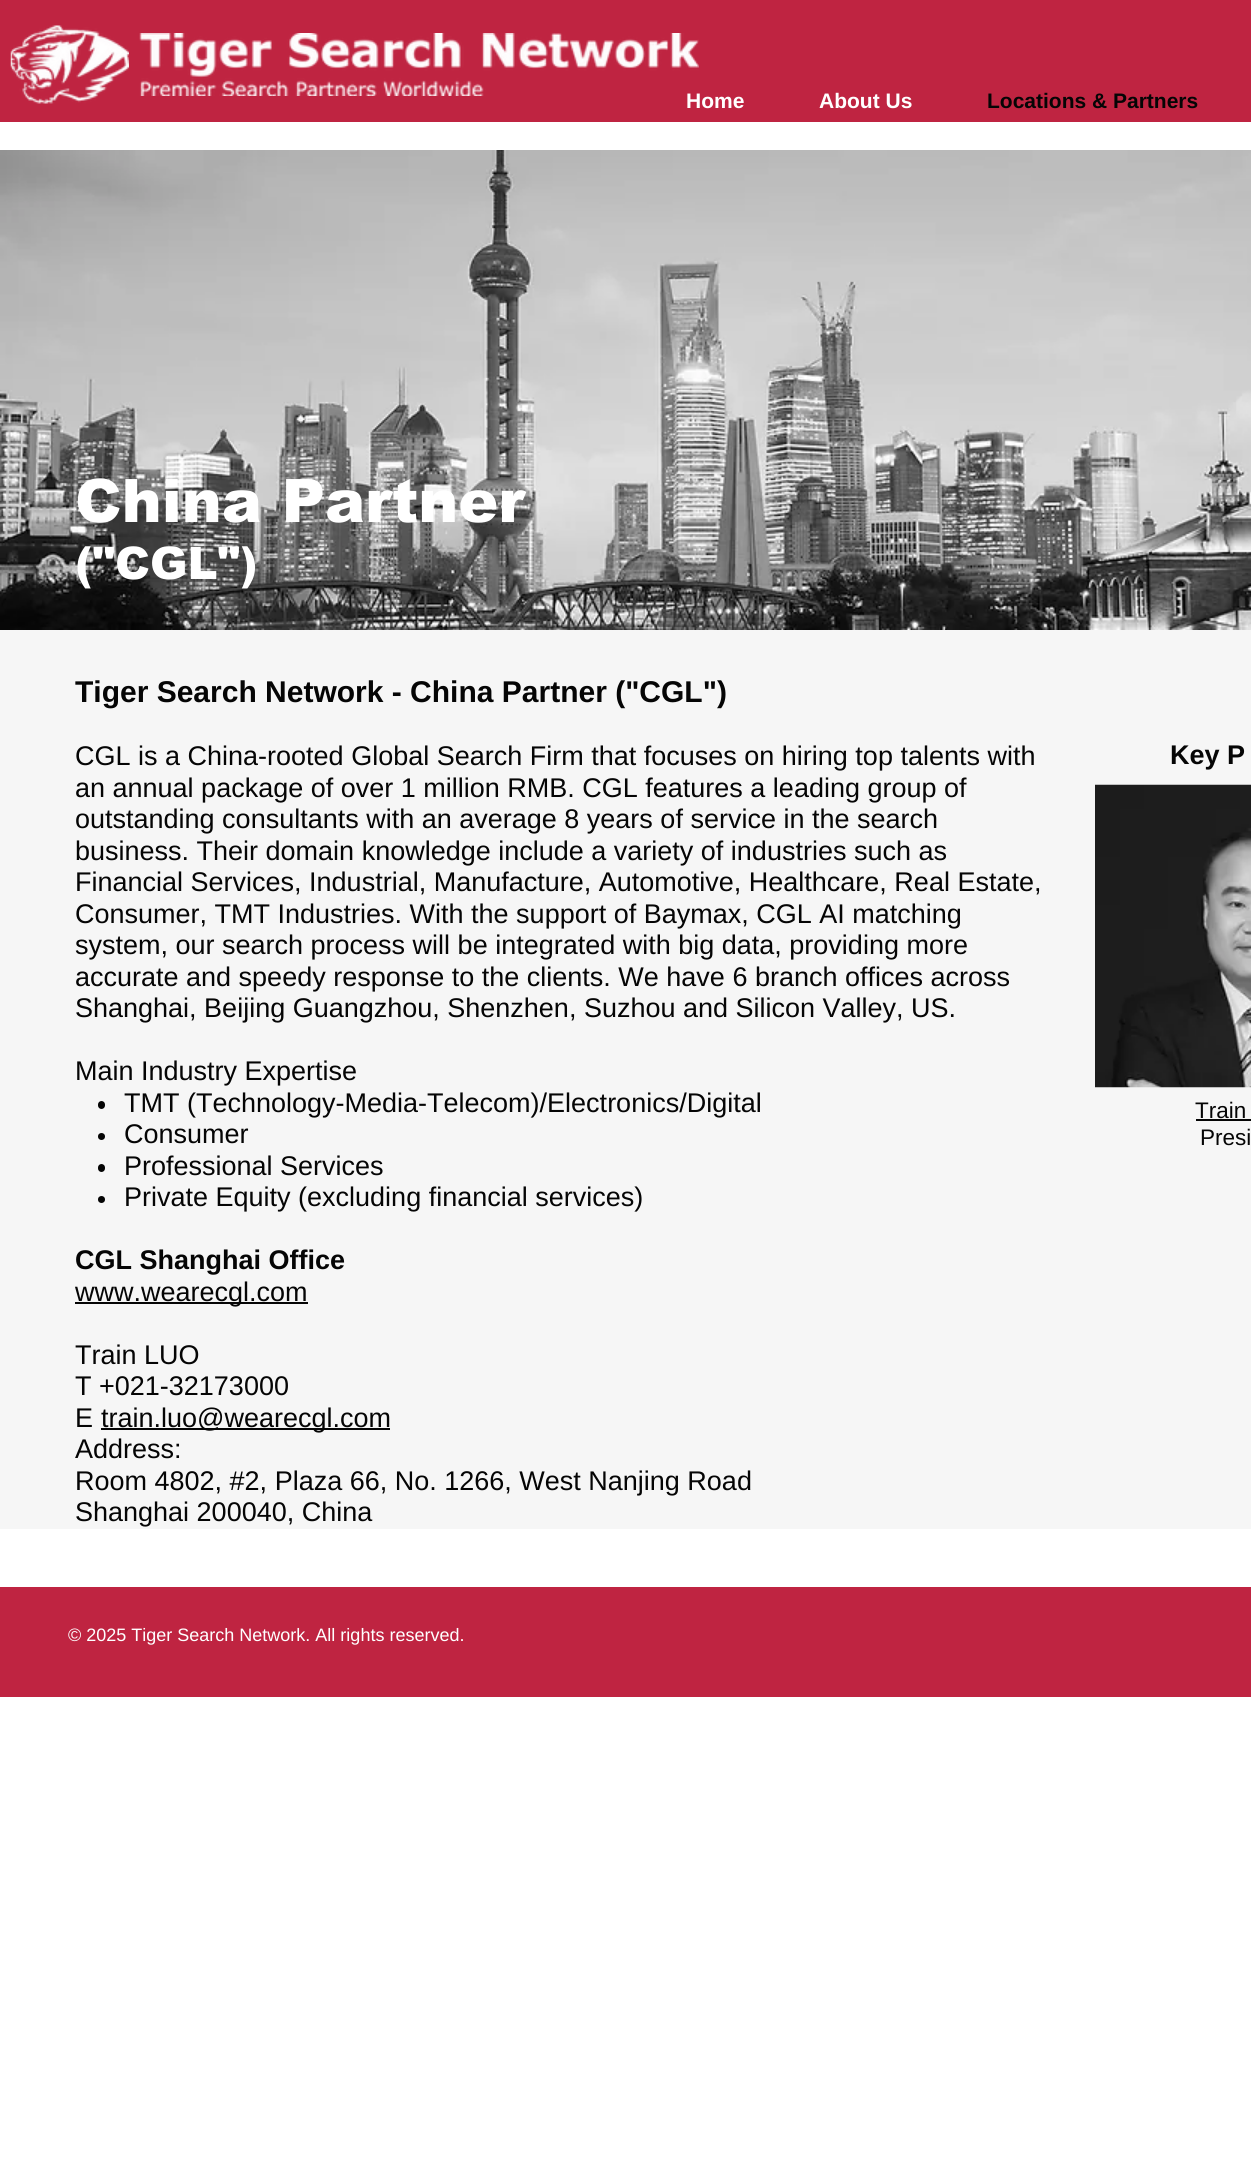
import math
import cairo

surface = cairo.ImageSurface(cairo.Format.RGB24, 1251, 2180)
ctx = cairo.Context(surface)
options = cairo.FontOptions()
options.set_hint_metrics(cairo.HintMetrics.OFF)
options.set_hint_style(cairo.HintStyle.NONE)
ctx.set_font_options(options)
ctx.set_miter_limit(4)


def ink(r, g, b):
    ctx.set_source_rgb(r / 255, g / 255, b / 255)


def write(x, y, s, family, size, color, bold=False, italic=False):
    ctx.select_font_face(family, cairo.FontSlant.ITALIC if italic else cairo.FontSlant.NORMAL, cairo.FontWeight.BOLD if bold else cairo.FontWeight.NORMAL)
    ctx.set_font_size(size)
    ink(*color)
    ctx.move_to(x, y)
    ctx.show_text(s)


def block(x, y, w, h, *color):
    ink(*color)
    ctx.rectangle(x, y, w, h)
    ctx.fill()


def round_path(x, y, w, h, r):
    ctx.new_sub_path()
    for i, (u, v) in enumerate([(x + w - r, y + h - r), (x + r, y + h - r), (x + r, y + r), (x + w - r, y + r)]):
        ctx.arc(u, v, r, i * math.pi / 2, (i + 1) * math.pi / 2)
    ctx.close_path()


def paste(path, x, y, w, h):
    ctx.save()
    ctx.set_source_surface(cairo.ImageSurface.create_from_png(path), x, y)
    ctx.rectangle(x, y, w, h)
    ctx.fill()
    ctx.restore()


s1 = dict(family="Liberation Sans", size=21, color=(255, 255, 255), bold=True)
s2 = dict(family="Liberation Sans", size=21, color=(5, 5, 5), bold=True)
s3 = dict(family="arial Black", size=60, color=(255, 255, 255))
s4 = dict(family="arial Black", size=45, color=(255, 255, 255))
s5 = dict(family="Liberation Sans", size=30, color=(5, 5, 5), bold=True)
s6 = dict(family="Liberation Sans", size=27, color=(5, 5, 5))
s7 = dict(family="Liberation Sans", size=27, color=(5, 5, 5), bold=True)
s8 = dict(family="Liberation Sans", size=22.5, color=(5, 5, 5))
s9 = dict(family="Liberation Sans", size=18, color=(255, 255, 255))

ink(255, 255, 255)
ctx.paint()
block(0, 0, 1251, 122, 191, 36, 65)
paste("pic1.png", 10, 25, 119, 79)
write(686, 108, "Home", **s1)
paste("pic2.png", 139, 33, 560, 63)
write(819, 108, "About Us", **s1)
write(987, 108, "Locations & Partners", **s2)
paste("pic3.png", 0, 150, 1251, 480)
write(75, 522, "China Partner", **s3)
write(75, 579, "(\"CGL\")", **s4)
block(0, 630, 1251, 899, 246, 246, 246)
write(75, 702, "Tiger Search Network - China Partner (\"CGL\")", **s5)
write(75, 765, "CGL is a China-rooted Global Search Firm that focuses on hiring top talents with", **s6)
write(75, 797, "an annual package of over 1 million RMB. CGL features a leading group of", **s6)
write(75, 828, "outstanding consultants with an average 8 years of service in the search", **s6)
write(75, 860, "business. Their domain knowledge include a variety of industries such as", **s6)
write(75, 891, "Financial Services, Industrial, Manufacture, Automotive, Healthcare, Real Estate,", **s6)
write(75, 923, "Consumer, TMT Industries. With the support of Baymax, CGL AI matching", **s6)
write(75, 954, "system, our search process will be integrated with big data, providing more", **s6)
write(75, 986, "accurate and speedy response to the clients. We have 6 branch offices across", **s6)
write(75, 1017, "Shanghai, Beijing Guangzhou, Shenzhen, Suzhou and Silicon Valley, US.", **s6)
write(75, 1080, "Main Industry Expertise", **s6)
round_path(98, 1101, 7, 8, 3.5)
ctx.fill()
write(124, 1112, "TMT (Technology-Media-Telecom)/Electronics/Digital", **s6)
ctx.new_path()
ctx.arc(101.5, 1136.5, 3.5, 0, 2 * math.pi)
ctx.fill()
write(124, 1143, "Consumer", **s6)
round_path(98, 1164, 7, 8, 3.5)
ctx.fill()
write(124, 1175, "Professional Services", **s6)
ctx.new_path()
ctx.arc(101.5, 1199.5, 3.5, 0, 2 * math.pi)
ctx.fill()
write(124, 1206, "Private Equity (excluding financial services)", **s6)
write(75, 1269, "CGL Shanghai Office", **s7)
block(75, 1302, 233, 2, 5, 5, 5)
write(75, 1301, "www.wearecgl.com", **s6)
write(75, 1364, "Train LUO", **s6)
write(75, 1395, "T +021-32173000", **s6)
write(75, 1427, "E", **s6)
block(101, 1428, 289, 2, 5, 5, 5)
write(101, 1427, "train.luo@wearecgl.com", **s6)
write(75, 1458, "Address:", **s6)
write(75, 1490, "Room 4802, #2, Plaza 66, No. 1266, West Nanjing Road", **s6)
write(75, 1521, "Shanghai 200040, China", **s6)
write(1170, 764, "Key P", **s7)
paste("pic4.png", 1095, 784, 156, 304)
write(1195, 1118, "Train", **s8)
block(1196, 1119, 55, 2, 5, 5, 5)
write(1200, 1145, "Presi", **s8)
block(0, 1587, 1251, 110, 191, 36, 65)
write(68, 1641, "© 2025 Tiger Search Network. All rights reserved.", **s9)
surface.write_to_png("screenshot.png")
